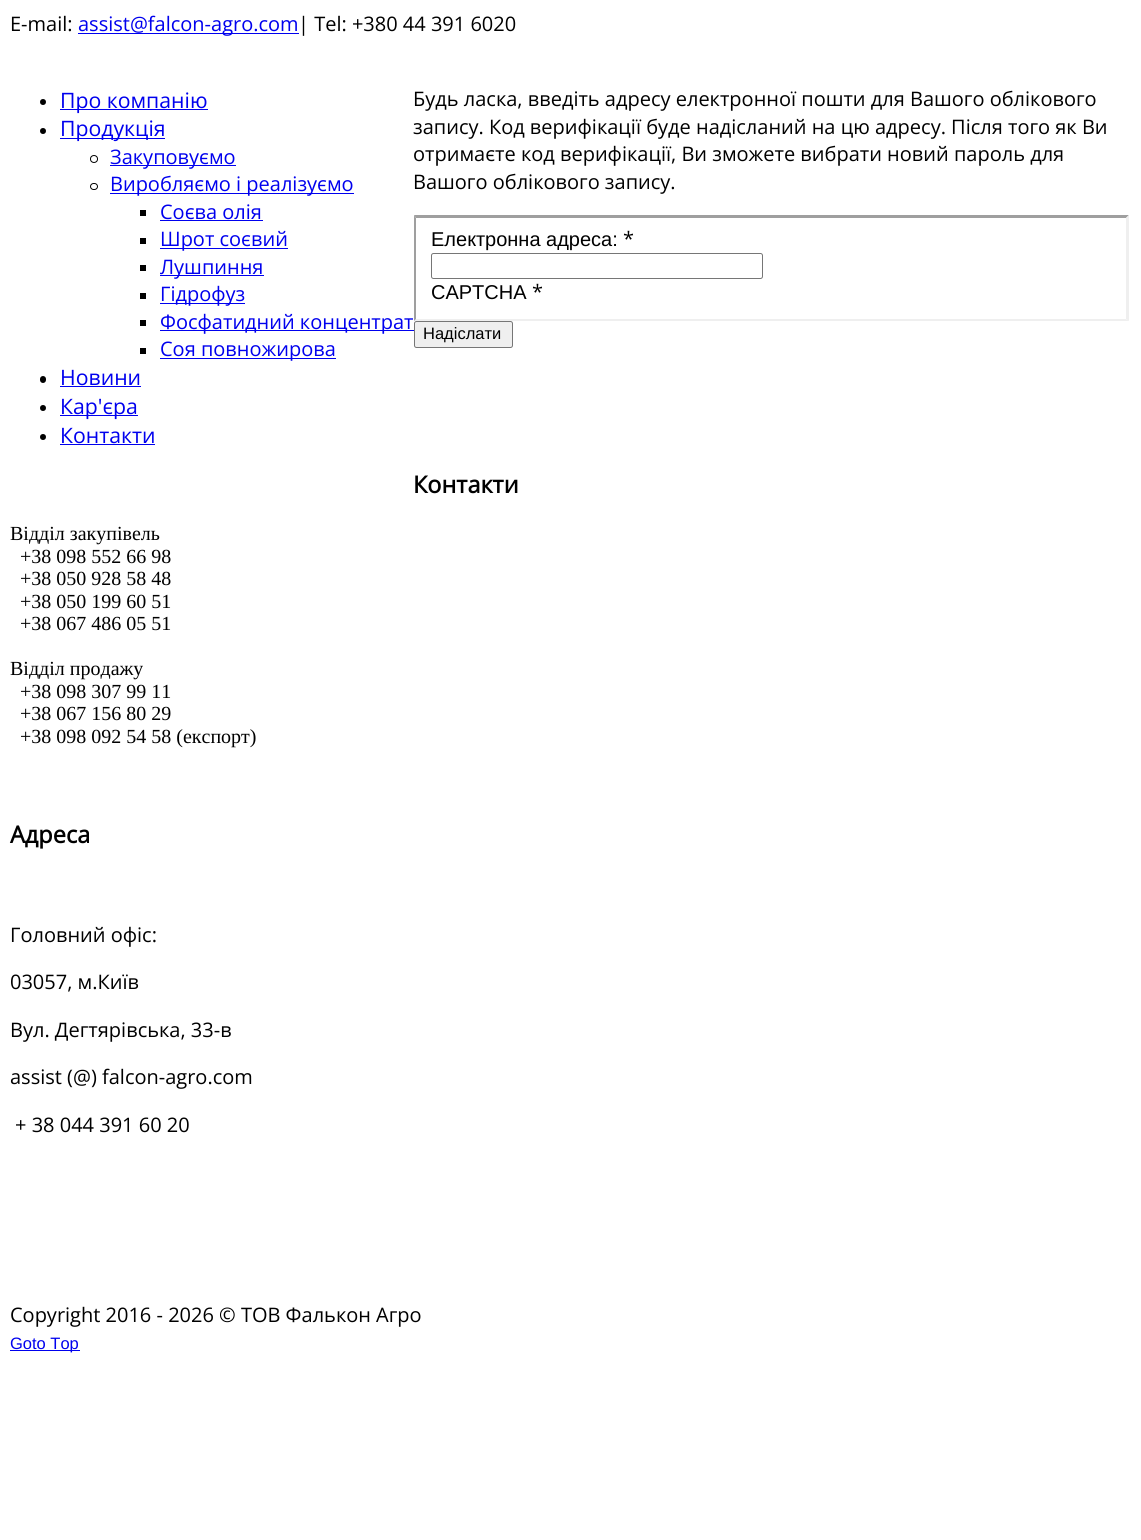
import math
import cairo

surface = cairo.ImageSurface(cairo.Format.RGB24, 1141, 1540)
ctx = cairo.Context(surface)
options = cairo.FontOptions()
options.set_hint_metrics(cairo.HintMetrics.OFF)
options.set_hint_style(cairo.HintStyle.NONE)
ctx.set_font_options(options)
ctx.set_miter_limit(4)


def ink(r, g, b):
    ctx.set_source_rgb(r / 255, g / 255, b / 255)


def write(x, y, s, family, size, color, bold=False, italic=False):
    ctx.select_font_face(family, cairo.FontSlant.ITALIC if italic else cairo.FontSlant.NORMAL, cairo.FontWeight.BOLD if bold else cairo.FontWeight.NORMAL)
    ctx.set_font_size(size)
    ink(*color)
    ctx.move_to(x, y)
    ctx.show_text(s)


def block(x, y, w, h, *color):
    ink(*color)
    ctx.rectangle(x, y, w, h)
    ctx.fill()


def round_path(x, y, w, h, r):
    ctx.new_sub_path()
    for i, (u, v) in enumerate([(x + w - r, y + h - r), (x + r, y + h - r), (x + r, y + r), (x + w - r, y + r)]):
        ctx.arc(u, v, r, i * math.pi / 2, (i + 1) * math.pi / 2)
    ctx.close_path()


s1 = dict(family="Open Sans", size=20, color=(0, 0, 0))
s2 = dict(family="Open Sans", size=20, color=(0, 0, 238))
s3 = dict(family="Open Sans", size=21.25, color=(0, 0, 238))
s4 = dict(family="Liberation Sans", size=20, color=(0, 0, 0))
s5 = dict(family="Liberation Sans", size=16.5, color=(0, 0, 0))
s6 = dict(family="Open Sans", size=23.5, color=(0, 0, 0), bold=True)
s7 = dict(family="Liberation Serif", size=20, color=(0, 0, 0))
s8 = dict(family="Liberation Sans", size=16.5, color=(0, 0, 238))

ink(255, 255, 255)
ctx.paint()
write(10, 31, "E-mail:", **s1)
block(78, 33, 221, 1, 0, 0, 238)
write(78, 31, "assist@falcon-agro.com", **s2)
write(298, 31, "| Tel: +380 44 391 6020", **s1)
ctx.new_path()
ctx.arc(43, 102, 3, 0, 2 * math.pi)
ctx.fill()
block(60, 109, 148, 1, 0, 0, 238)
write(60, 108, "Про компанію", **s3)
ink(0, 0, 0)
ctx.new_path()
ctx.arc(43, 131, 3, 0, 2 * math.pi)
ctx.fill()
block(60, 138, 105, 1, 0, 0, 238)
write(60, 136, "Продукція", **s3)
ctx.new_path()
ctx.arc(94, 159, 3.5, 0, 2 * math.pi)
ink(0, 0, 0)
ctx.set_line_width(1)
ctx.stroke()
block(110, 165, 126, 1, 0, 0, 238)
write(110, 164, "Закуповуємо", **s2)
round_path(90.5, 183.5, 7, 6, 3)
ink(0, 0, 0)
ctx.stroke()
block(110, 193, 244, 1, 0, 0, 238)
write(110, 191, "Виробляємо і реалізуємо", **s2)
block(140, 210, 6, 6, 0, 0, 0)
write(160, 219, "Соєва олія", **s2)
block(160, 220, 103, 1, 0, 0, 238)
block(140, 238, 6, 6, 0, 0, 0)
block(160, 248, 128, 1, 0, 0, 238)
write(160, 246, "Шрот соєвий", **s2)
block(140, 265, 6, 6, 0, 0, 0)
block(160, 275, 104, 1, 0, 0, 238)
write(160, 274, "Лушпиння", **s2)
block(140, 293, 6, 6, 0, 0, 0)
block(160, 303, 85, 1, 0, 0, 238)
write(160, 301, "Гідрофуз", **s2)
block(140, 320, 6, 6, 0, 0, 0)
block(160, 330, 254, 1, 0, 0, 238)
write(160, 329, "Фосфатидний концентрат", **s2)
block(140, 348, 6, 6, 0, 0, 0)
block(160, 358, 176, 1, 0, 0, 238)
write(160, 356, "Соя повножирова", **s2)
ink(0, 0, 0)
round_path(40, 376, 6, 7, 3)
ctx.fill()
write(60, 385, "Новини", **s3)
block(60, 386, 81, 1, 0, 0, 238)
ink(0, 0, 0)
ctx.new_path()
ctx.arc(43, 408, 3, 0, 2 * math.pi)
ctx.fill()
block(60, 415, 78, 1, 0, 0, 238)
write(60, 414, "Кар'єра", **s3)
ink(0, 0, 0)
ctx.new_path()
ctx.arc(43, 437, 3, 0, 2 * math.pi)
ctx.fill()
write(60, 443, "Контакти", **s3)
block(60, 444, 95, 1, 0, 0, 238)
write(413, 106, "Будь ласка, введіть адресу електронної пошти для Вашого облікового", **s1)
write(413, 134, "запису. Код верифікації буде надісланий на цю адресу. Після того як Ви", **s1)
write(413, 161, "отримаєте код верифікації, Ви зможете вибрати новий пароль для", **s1)
write(413, 189, "Вашого облікового запису.", **s1)
ink(159, 159, 159)
ctx.new_path()
ctx.move_to(414, 215)
ctx.line_to(1129, 215)
ctx.line_to(1126, 218)
ctx.line_to(416, 218)
ctx.close_path()
ctx.fill()
ink(239, 239, 239)
ctx.new_path()
ctx.move_to(1129, 215)
ctx.line_to(1129, 321)
ctx.line_to(1126, 319)
ctx.line_to(1126, 218)
ctx.close_path()
ctx.fill()
ctx.new_path()
ctx.move_to(1129, 321)
ctx.line_to(414, 321)
ctx.line_to(416, 319)
ctx.line_to(1126, 319)
ctx.close_path()
ctx.fill()
ink(159, 159, 159)
ctx.new_path()
ctx.move_to(414, 321)
ctx.line_to(414, 215)
ctx.line_to(416, 218)
ctx.line_to(416, 319)
ctx.close_path()
ctx.fill()
write(431, 246, "Електронна адреса:", **s4)
write(623, 246, "*", **s1)
round_path(431.5, 253.5, 331, 25, 2)
ink(118, 118, 118)
ctx.stroke()
write(431, 299, "CAPTCHA", **s4)
write(532, 299, "*", **s1)
ink(239, 239, 239)
round_path(414.5, 321.5, 98, 26, 2)
ctx.fill_preserve()
ink(118, 118, 118)
ctx.stroke()
write(423, 339, "Надіслати", **s5)
write(413, 493, "Контакти", **s6)
write(10, 540, "Відділ закупівель", **s7)
write(20, 563, "+38 098 552 66 98", **s7)
write(20, 585, "+38 050 928 58 48", **s7)
write(20, 608, "+38 050 199 60 51", **s7)
write(20, 630, "+38 067 486 05 51", **s7)
write(10, 675, "Відділ продажу", **s7)
write(20, 698, "+38 098 307 99 11", **s7)
write(20, 720, "+38 067 156 80 29", **s7)
write(20, 743, "+38 098 092 54 58 (експорт)", **s7)
write(10, 843, "Адреса", **s6)
write(10, 942, "Головний офіс:", **s1)
write(10, 989, "03057, м.Київ", **s1)
write(10, 1037, "Вул. Дегтярівська, 33-в", **s1)
write(10, 1084, "assist (@) falcon-agro.com", **s1)
write(15, 1132, "+ 38 044 391 60 20", **s1)
write(10, 1322, "Copyright 2016 - 2026 © ТОВ Фалькон Агро", **s1)
block(10, 1350, 70, 1, 0, 0, 238)
write(10, 1349, "Goto Top", **s8)
surface.write_to_png("screenshot.png")
